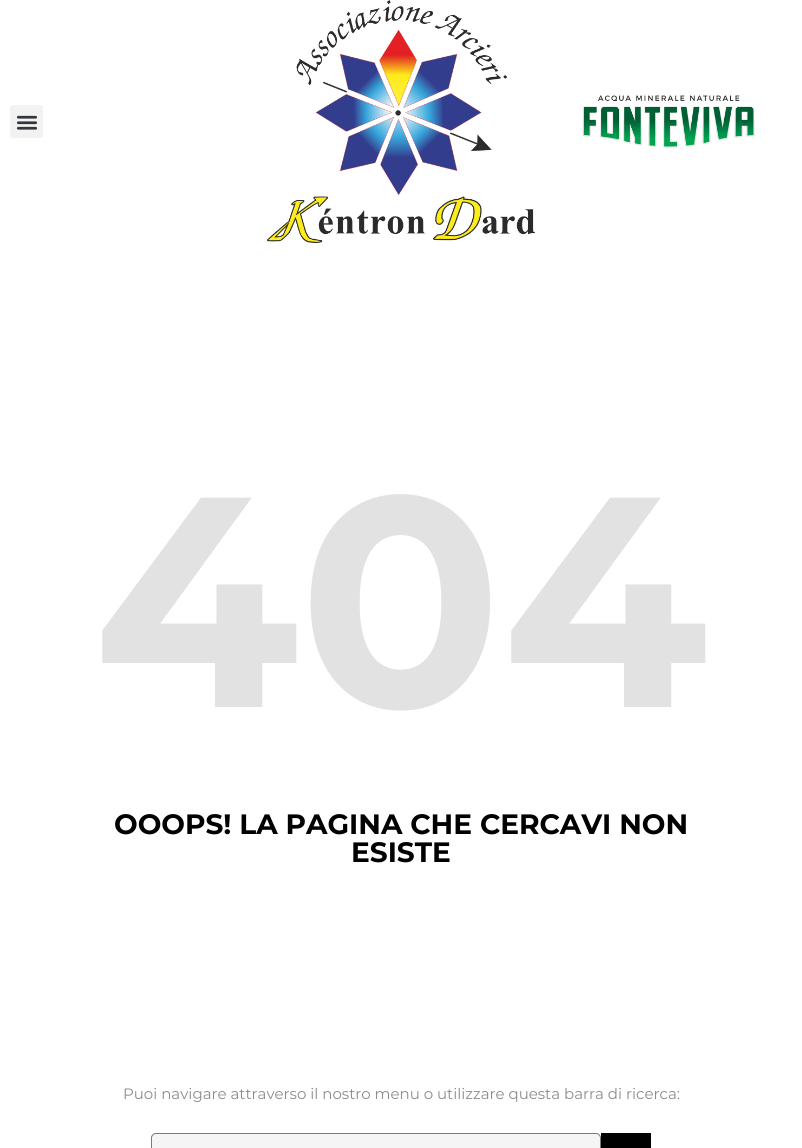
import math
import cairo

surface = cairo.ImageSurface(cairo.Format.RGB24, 802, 1148)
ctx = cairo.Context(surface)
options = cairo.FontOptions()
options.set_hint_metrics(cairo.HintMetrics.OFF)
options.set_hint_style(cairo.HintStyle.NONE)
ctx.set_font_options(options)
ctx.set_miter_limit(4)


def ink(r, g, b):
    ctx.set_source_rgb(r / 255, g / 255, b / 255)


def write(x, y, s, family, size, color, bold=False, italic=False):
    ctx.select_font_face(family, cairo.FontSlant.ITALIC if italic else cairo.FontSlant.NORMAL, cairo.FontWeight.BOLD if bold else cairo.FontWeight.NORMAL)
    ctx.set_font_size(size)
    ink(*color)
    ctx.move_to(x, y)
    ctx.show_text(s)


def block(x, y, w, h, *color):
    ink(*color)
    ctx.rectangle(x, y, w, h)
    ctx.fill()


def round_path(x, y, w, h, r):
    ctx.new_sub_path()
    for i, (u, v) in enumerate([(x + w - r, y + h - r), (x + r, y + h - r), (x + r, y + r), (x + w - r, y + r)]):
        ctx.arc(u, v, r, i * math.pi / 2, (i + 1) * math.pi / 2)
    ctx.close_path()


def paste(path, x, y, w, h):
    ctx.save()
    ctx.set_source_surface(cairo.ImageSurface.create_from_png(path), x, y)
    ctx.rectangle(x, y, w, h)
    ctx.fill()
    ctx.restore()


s1 = dict(family="Montserrat", size=299, color=(226, 226, 226), bold=True)
s2 = dict(family="Montserrat", size=28, color=(0, 0, 0), bold=True)
s3 = dict(family="Montserrat", size=15, color=(140, 140, 140))

ink(255, 255, 255)
ctx.paint()
ink(242, 242, 242)
round_path(10, 105, 33, 33, 3)
ctx.fill()
paste("pic1.png", 16, 115, 22, 15)
paste("pic2.png", 267, 0, 268, 243)
paste("pic3.png", 582, 95, 173, 53)
write(93, 707, "404", **s1)
write(114, 834, "OOOPS! LA PAGINA CHE CERCAVI NON", **s2)
write(351, 862, "ESISTE", **s2)
write(123, 1099, "Puoi navigare attraverso il nostro menu o utilizzare questa barra di ricerca:", **s3)
ink(245, 245, 245)
round_path(151.5, 1133.5, 449, 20, 4.5)
ctx.fill_preserve()
ink(122, 122, 122)
ctx.set_line_width(1)
ctx.stroke()
block(601, 1133, 50, 15, 0, 0, 0)
surface.write_to_png("screenshot.png")
